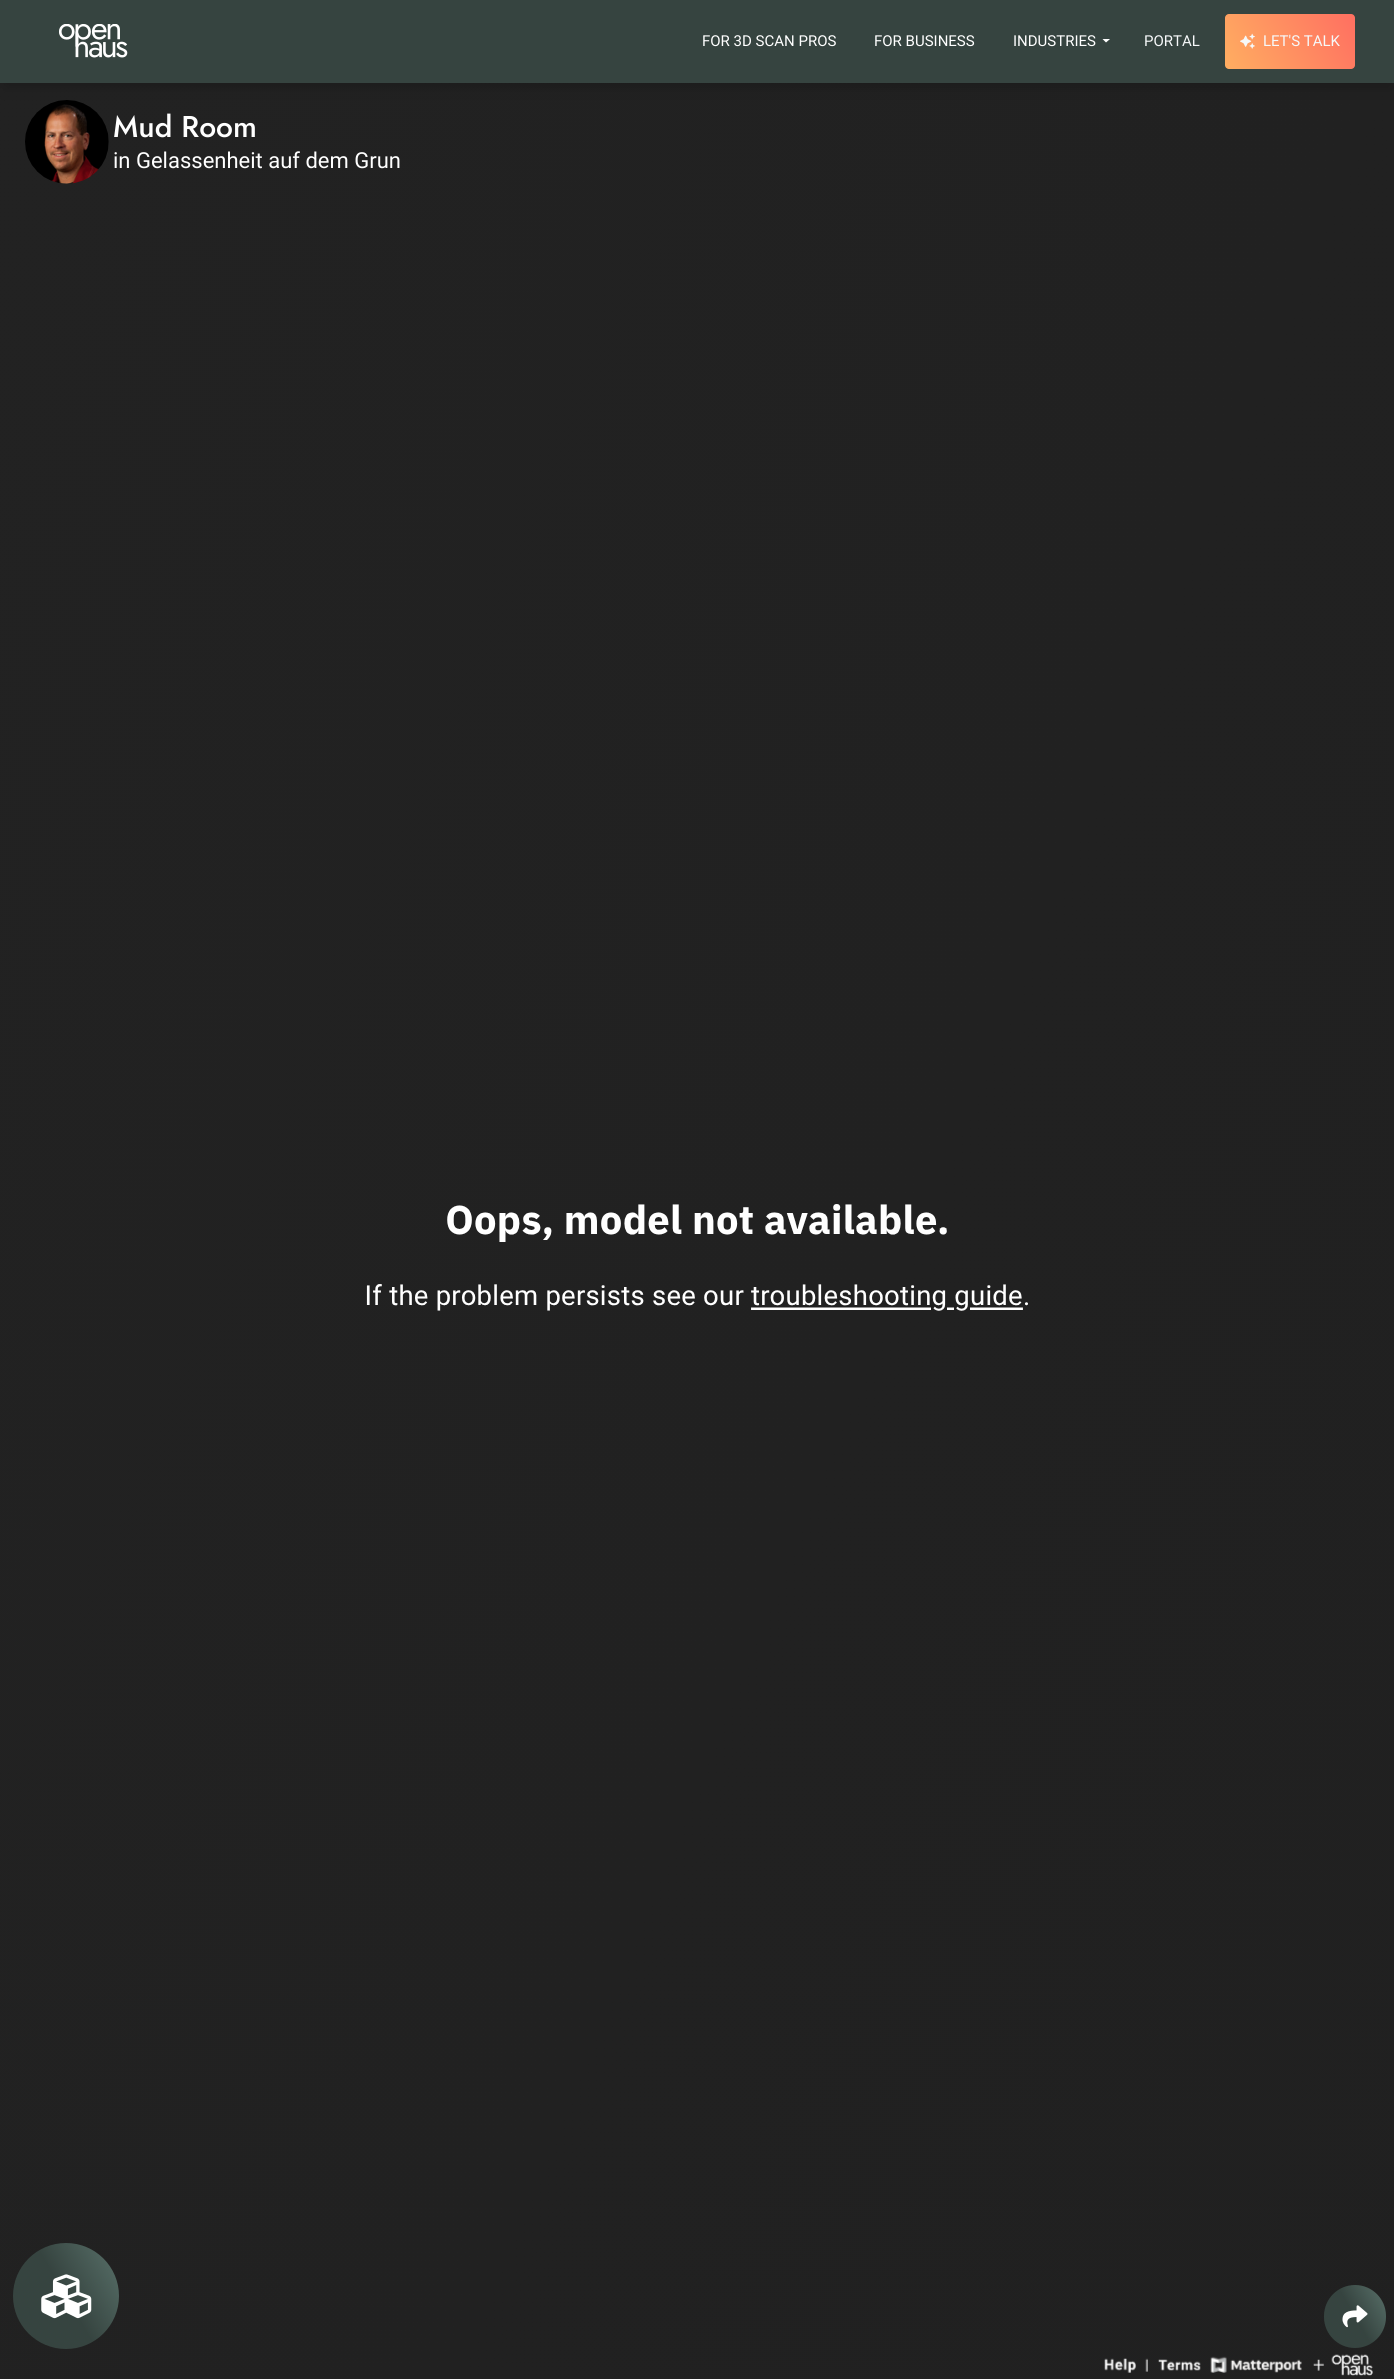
import math
import cairo

surface = cairo.ImageSurface(cairo.Format.RGB24, 1394, 2379)
ctx = cairo.Context(surface)
options = cairo.FontOptions()
options.set_hint_metrics(cairo.HintMetrics.OFF)
options.set_hint_style(cairo.HintStyle.NONE)
ctx.set_font_options(options)
ctx.set_miter_limit(4)


def ink(r, g, b):
    ctx.set_source_rgb(r / 255, g / 255, b / 255)


def write(x, y, s, family, size, color, bold=False, italic=False):
    ctx.select_font_face(family, cairo.FontSlant.ITALIC if italic else cairo.FontSlant.NORMAL, cairo.FontWeight.BOLD if bold else cairo.FontWeight.NORMAL)
    ctx.set_font_size(size)
    ink(*color)
    ctx.move_to(x, y)
    ctx.show_text(s)


def block(x, y, w, h, *color):
    ink(*color)
    ctx.rectangle(x, y, w, h)
    ctx.fill()


def round_path(x, y, w, h, r):
    ctx.new_sub_path()
    for i, (u, v) in enumerate([(x + w - r, y + h - r), (x + r, y + h - r), (x + r, y + r), (x + w - r, y + r)]):
        ctx.arc(u, v, r, i * math.pi / 2, (i + 1) * math.pi / 2)
    ctx.close_path()


def blur_box(x, y, w, h, r, blur, alpha):
    ctx.push_group_with_content(cairo.Content.ALPHA)
    ctx.set_operator(cairo.Operator.SOURCE)
    for i in range(15, -16, -2):
        e = blur * i / 6
        if min(w, h) + 2 * e > 0:
            ctx.set_source_rgba(0, 0, 0, alpha * math.erfc((i - 1) / 8.5) / 2)
            round_path(x - e, y - e, w + 2 * e, h + 2 * e, max(0, min(r + e + blur * .6, min(w, h) / 2 + e)))
            ctx.fill()
    ctx.mask(ctx.pop_group())


def paste(path, x, y, w, h):
    ctx.save()
    ctx.set_source_surface(cairo.ImageSurface.create_from_png(path), x, y)
    ctx.rectangle(x, y, w, h)
    ctx.fill()
    ctx.restore()


s1 = dict(family="Roboto", size=15, color=(255, 255, 255))
s2 = dict(family="Roboto", size=15, color=(246, 248, 249))
s3 = dict(family="Jost Medium", size=30, color=(255, 255, 255))
s4 = dict(family="Roboto", size=22, color=(255, 255, 255))

ink(255, 255, 255)
ctx.paint()
paste("pic3.png", 0, 83, 1394, 2296)
paste("pic4.png", 25, 100, 84, 84)
ink(0, 0, 0)
blur_box(6, 15, 1383, 70, 0, 6, 0.15)
blur_box(0, 5, 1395, 83, 0, 11, 0.12)
block(0, 0, 1394, 83, 54, 68, 64)
paste("pic1.png", 59, 24, 69, 34)
write(702, 46, "FOR 3D SCAN PROS", **s1)
write(874, 46, "FOR BUSINESS", **s1)
write(1013, 46, "INDUSTRIES", **s1)
ctx.new_path()
ctx.move_to(1102.5, 39)
ctx.line_to(1110, 39)
ctx.line_to(1106, 42.5)
ctx.close_path()
ctx.fill()
write(1144, 46, "PORTAL", **s2)
gradient = cairo.LinearGradient(1229, 76, 1351, 6.2)
gradient.add_color_stop_rgba(0, 1, 0.682, 0.38, 1)
gradient.add_color_stop_rgba(1, 1, 0.435, 0.38, 1)
ctx.set_source(gradient)
round_path(1225, 14, 130, 55, 4)
ctx.fill()
paste("pic2.png", 1240, 33, 15, 16)
write(1263, 46, "LET'S TALK", **s2)
write(113, 137, "Mud Room", **s3)
write(113, 168, "in Gelassenheit auf dem Grun", **s4)
gradient = cairo.LinearGradient(2.8, 2332, 128, 2259)
gradient.add_color_stop_rgba(0, 0.212, 0.267, 0.251, 1)
gradient.add_color_stop_rgba(0.5, 0.212, 0.267, 0.251, 1)
gradient.add_color_stop_rgba(1, 0.349, 0.443, 0.416, 1)
ctx.set_source(gradient)
ctx.new_path()
ctx.arc(66, 2296, 53, 0, 2 * math.pi)
ctx.fill()
paste("pic5.png", 41, 2274, 51, 45)
gradient = cairo.LinearGradient(1318, 2338, 1392, 2295)
gradient.add_color_stop_rgba(0, 0.212, 0.267, 0.251, 1)
gradient.add_color_stop_rgba(0.5, 0.212, 0.267, 0.251, 1)
gradient.add_color_stop_rgba(1, 0.349, 0.443, 0.416, 1)
ctx.set_source(gradient)
round_path(1324, 2285, 62, 63, 31)
ctx.fill()
paste("pic6.png", 1342, 2305, 26, 23)
paste("pic7.png", 1104, 2358, 44, 15)
paste("pic8.png", 1158, 2359, 43, 12)
paste("pic9.png", 1210, 2356, 92, 17)
paste("pic10.png", 1313, 2354, 60, 22)
surface.write_to_png("screenshot.png")
